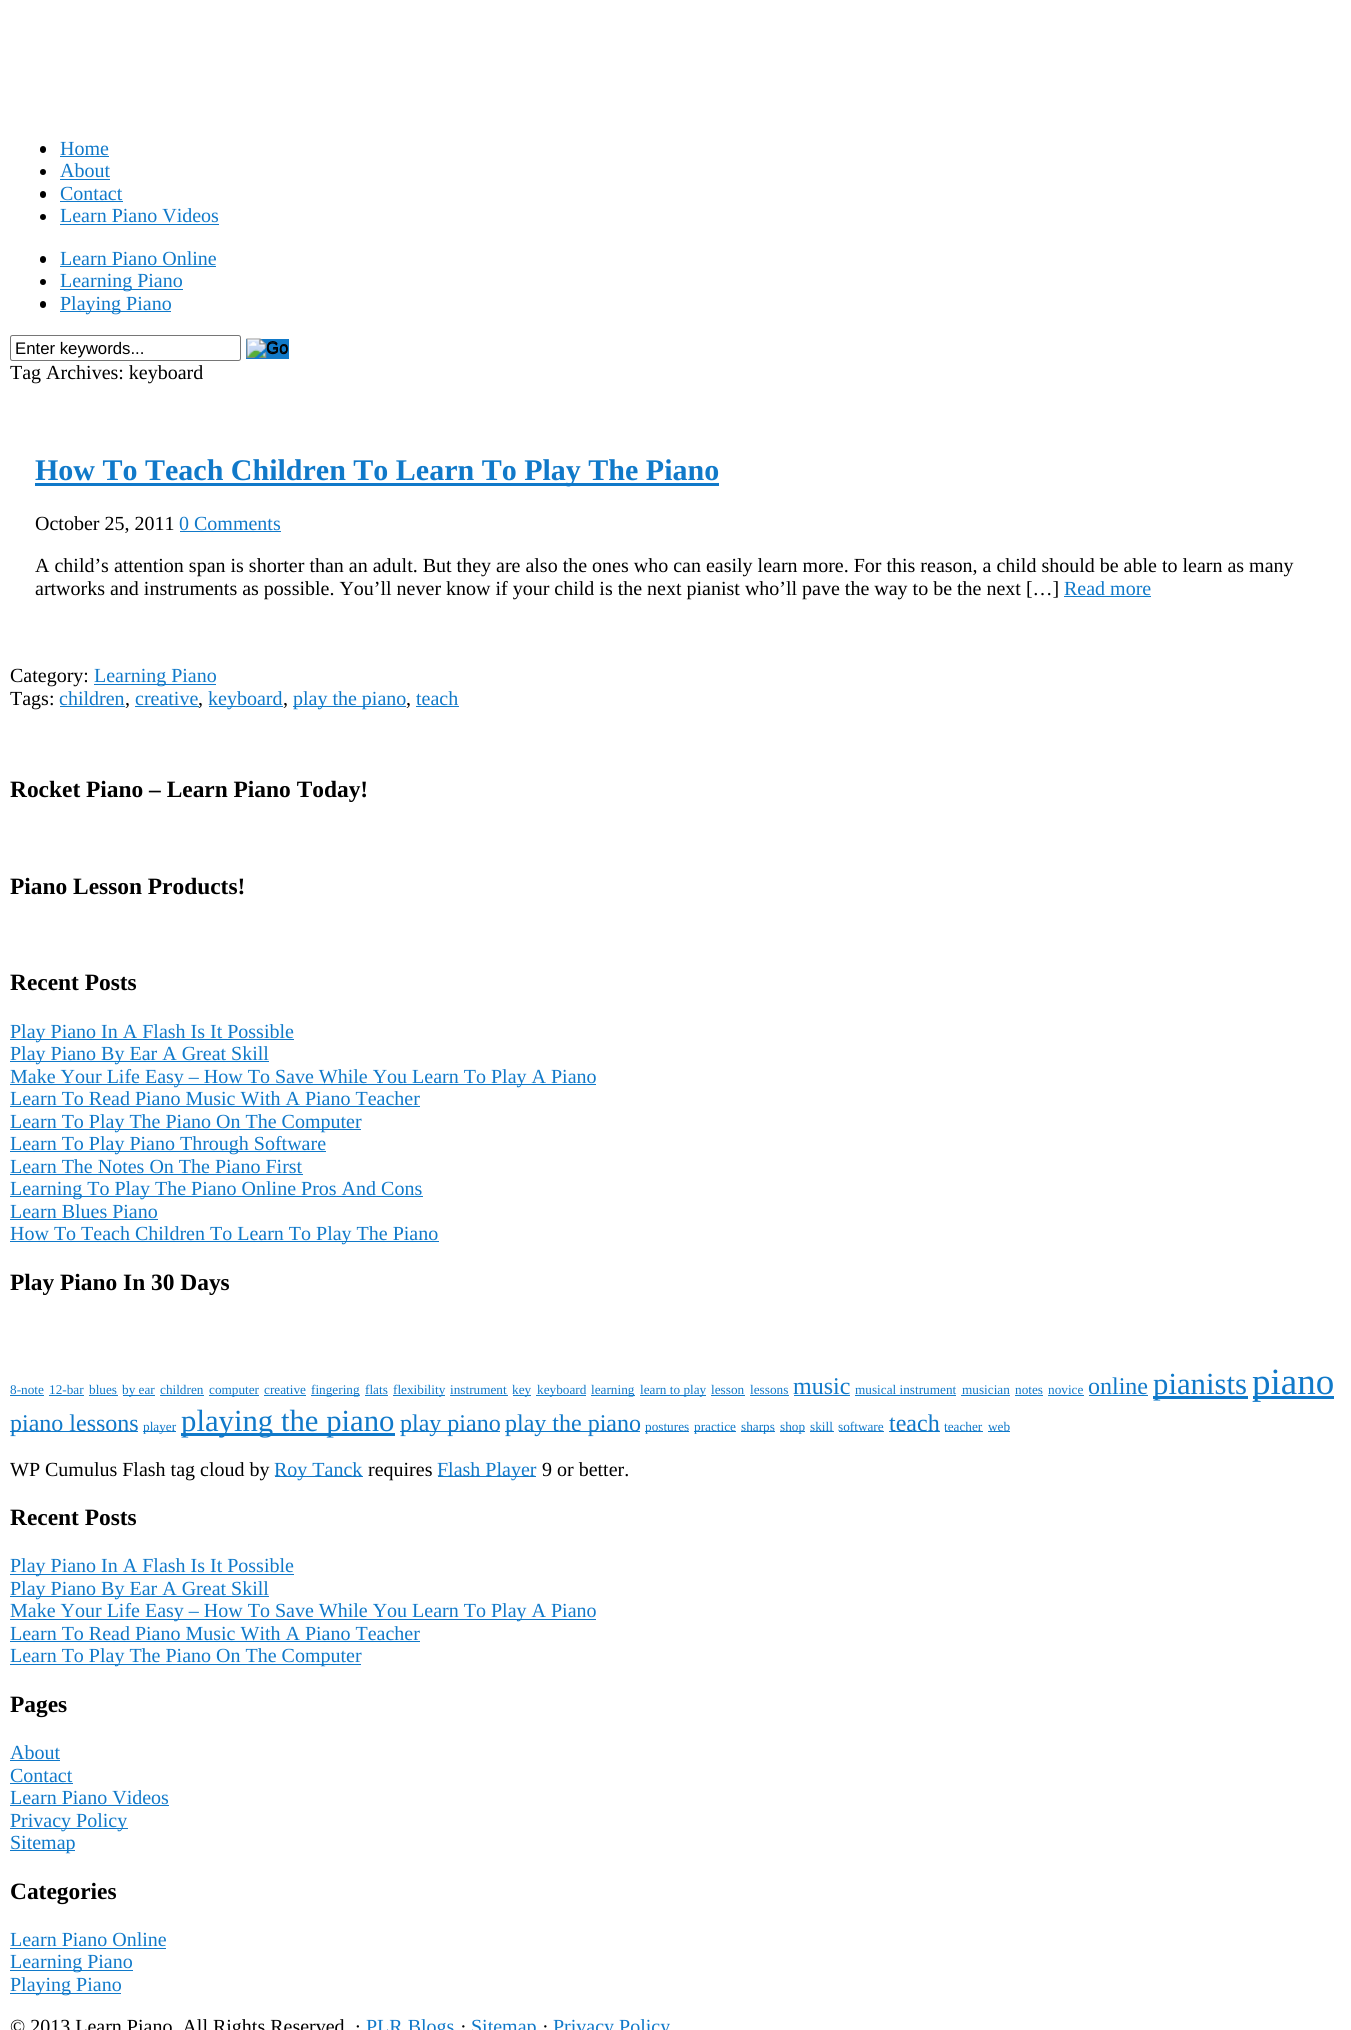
import math
import cairo

surface = cairo.ImageSurface(cairo.Format.RGB24, 1351, 2030)
ctx = cairo.Context(surface)
options = cairo.FontOptions()
options.set_hint_metrics(cairo.HintMetrics.OFF)
options.set_hint_style(cairo.HintStyle.NONE)
ctx.set_font_options(options)
ctx.set_miter_limit(4)


def ink(r, g, b):
    ctx.set_source_rgb(r / 255, g / 255, b / 255)


def write(x, y, s, family, size, color, bold=False, italic=False):
    ctx.select_font_face(family, cairo.FontSlant.ITALIC if italic else cairo.FontSlant.NORMAL, cairo.FontWeight.BOLD if bold else cairo.FontWeight.NORMAL)
    ctx.set_font_size(size)
    ink(*color)
    ctx.move_to(x, y)
    ctx.show_text(s)


def block(x, y, w, h, *color):
    ink(*color)
    ctx.rectangle(x, y, w, h)
    ctx.fill()


def round_path(x, y, w, h, r):
    ctx.new_sub_path()
    for i, (u, v) in enumerate([(x + w - r, y + h - r), (x + r, y + h - r), (x + r, y + r), (x + w - r, y + r)]):
        ctx.arc(u, v, r, i * math.pi / 2, (i + 1) * math.pi / 2)
    ctx.close_path()


def paste(path, x, y, w, h):
    ctx.save()
    ctx.set_source_surface(cairo.ImageSurface.create_from_png(path), x, y)
    ctx.rectangle(x, y, w, h)
    ctx.fill()
    ctx.restore()


s1 = dict(family="Liberation Serif", size=20, color=(16, 121, 201))
s2 = dict(family="Liberation Sans", size=16.75, color=(0, 0, 0))
s3 = dict(family="Liberation Serif", size=20, color=(0, 0, 0))
s4 = dict(family="Liberation Serif", size=30, color=(16, 121, 201), bold=True)
s5 = dict(family="Liberation Serif", size=23.4, color=(0, 0, 0), bold=True)
s6 = dict(family="Liberation Serif", size=13.25, color=(16, 121, 201))
s7 = dict(family="Liberation Serif", size=24, color=(16, 121, 201))
s8 = dict(family="Liberation Serif", size=30.75, color=(16, 121, 201))
s9 = dict(family="Liberation Serif", size=37, color=(16, 121, 201))

ink(255, 255, 255)
ctx.paint()
ink(0, 0, 0)
round_path(40, 146, 6, 7, 3)
ctx.fill()
write(60, 155, "Home", **s1)
block(60, 156, 49, 1, 16, 121, 201)
ink(0, 0, 0)
ctx.new_path()
ctx.arc(43, 172, 3, 0, 2 * math.pi)
ctx.fill()
write(60, 177, "About", **s1)
block(60, 179, 50, 1, 16, 121, 201)
ink(0, 0, 0)
round_path(40, 191, 6, 7, 3)
ctx.fill()
write(60, 200, "Contact", **s1)
block(60, 201, 63, 1, 16, 121, 201)
ink(0, 0, 0)
ctx.new_path()
ctx.arc(43, 217, 3, 0, 2 * math.pi)
ctx.fill()
write(60, 222, "Learn Piano Videos", **s1)
block(60, 224, 159, 1, 16, 121, 201)
ink(0, 0, 0)
round_path(40, 256, 6, 7, 3)
ctx.fill()
write(60, 265, "Learn Piano Online", **s1)
block(60, 266, 156, 1, 16, 121, 201)
ink(0, 0, 0)
ctx.new_path()
ctx.arc(43, 282, 3, 0, 2 * math.pi)
ctx.fill()
block(60, 289, 123, 1, 16, 121, 201)
write(60, 287, "Learning Piano", **s1)
ink(0, 0, 0)
round_path(40, 301, 6, 7, 3)
ctx.fill()
block(60, 311, 111, 1, 16, 121, 201)
write(60, 310, "Playing Piano", **s1)
round_path(10.5, 335.5, 230, 25, 2)
ink(118, 118, 118)
ctx.set_line_width(1)
ctx.stroke()
write(15, 354, "Enter keywords...", **s2)
block(246, 339, 43, 20, 16, 121, 201)
paste("pic1.png", 246, 338, 42, 21)
write(266, 354, "Go", **s2)
write(10, 379, "Tag Archives: keyboard", **s3)
block(35, 483, 684, 3, 16, 121, 201)
write(35, 480, "How To Teach Children To Learn To Play The Piano", **s4)
write(35, 530, "October 25, 2011", **s3)
write(179, 530, "0 Comments", **s1)
block(180, 531, 101, 1, 16, 121, 201)
write(35, 572, "A child’s attention span is shorter than an adult. But they are also the ones who can easily learn more. For this reason, a child should be able to learn as many", **s3)
write(35, 595, "artworks and instruments as possible. You’ll never know if your child is the next pianist who’ll pave the way to be the next […]", **s3)
write(1064, 595, "Read more", **s1)
block(1064, 596, 87, 1, 16, 121, 201)
write(10, 682, "Category:", **s3)
block(94, 684, 122, 1, 16, 121, 201)
write(94, 682, "Learning Piano", **s1)
write(10, 705, "Tags:", **s3)
write(59, 705, "children", **s1)
write(125, 705, ",", **s3)
block(60, 706, 65, 1, 16, 121, 201)
write(135, 705, "creative", **s1)
write(198, 705, ",", **s3)
block(135, 706, 64, 1, 16, 121, 201)
block(209, 706, 74, 1, 16, 121, 201)
write(208, 705, "keyboard", **s1)
write(283, 705, ",", **s3)
block(293, 706, 113, 1, 16, 121, 201)
write(293, 705, "play the piano", **s1)
write(406, 705, ",", **s3)
block(416, 706, 43, 1, 16, 121, 201)
write(416, 705, "teach", **s1)
write(10, 797, "Rocket Piano – Learn Piano Today!", **s5)
write(10, 894, "Piano Lesson Products!", **s5)
write(10, 990, "Recent Posts", **s5)
block(10, 1039, 284, 1, 16, 121, 201)
write(10, 1038, "Play Piano In A Flash Is It Possible", **s1)
block(10, 1061, 259, 1, 16, 121, 201)
write(10, 1060, "Play Piano By Ear A Great Skill", **s1)
block(10, 1084, 586, 1, 16, 121, 201)
write(10, 1083, "Make Your Life Easy – How To Save While You Learn To Play A Piano", **s1)
write(10, 1105, "Learn To Read Piano Music With A Piano Teacher", **s1)
block(10, 1106, 410, 1, 16, 121, 201)
block(10, 1129, 351, 1, 16, 121, 201)
write(10, 1128, "Learn To Play The Piano On The Computer", **s1)
block(10, 1151, 316, 1, 16, 121, 201)
write(10, 1150, "Learn To Play Piano Through Software", **s1)
write(10, 1173, "Learn The Notes On The Piano First", **s1)
block(10, 1174, 293, 1, 16, 121, 201)
block(10, 1196, 413, 1, 16, 121, 201)
write(10, 1195, "Learning To Play The Piano Online Pros And Cons", **s1)
write(10, 1218, "Learn Blues Piano", **s1)
block(10, 1219, 148, 1, 16, 121, 201)
block(10, 1241, 429, 1, 16, 121, 201)
write(10, 1240, "How To Teach Children To Learn To Play The Piano", **s1)
write(10, 1290, "Play Piano In 30 Days", **s5)
write(10, 1394, "8-note", **s6)
block(10, 1395, 34, 1, 16, 121, 201)
write(49, 1394, "12-bar", **s6)
block(49, 1395, 35, 1, 16, 121, 201)
write(89, 1394, "blues", **s6)
block(89, 1395, 29, 1, 16, 121, 201)
block(123, 1395, 32, 1, 16, 121, 201)
write(122, 1394, "by ear", **s6)
write(160, 1394, "children", **s6)
block(160, 1395, 44, 1, 16, 121, 201)
block(209, 1395, 50, 1, 16, 121, 201)
write(209, 1394, "computer", **s6)
write(264, 1394, "creative", **s6)
block(264, 1395, 42, 1, 16, 121, 201)
block(311, 1395, 49, 1, 16, 121, 201)
write(311, 1394, "fingering", **s6)
write(365, 1394, "flats", **s6)
block(365, 1395, 23, 1, 16, 121, 201)
block(393, 1395, 52, 1, 16, 121, 201)
write(393, 1394, "flexibility", **s6)
write(450, 1394, "instrument", **s6)
block(450, 1395, 58, 1, 16, 121, 201)
block(513, 1395, 18, 1, 16, 121, 201)
write(512, 1394, "key", **s6)
block(536, 1395, 50, 1, 16, 121, 201)
write(537, 1394, "keyboard", **s6)
block(591, 1395, 44, 1, 16, 121, 201)
write(591, 1394, "learning", **s6)
block(640, 1395, 66, 1, 16, 121, 201)
write(640, 1394, "learn to play", **s6)
write(711, 1394, "lesson", **s6)
block(711, 1395, 34, 1, 16, 121, 201)
write(750, 1394, "lessons", **s6)
block(750, 1395, 39, 1, 16, 121, 201)
write(793, 1394, "music", **s7)
block(794, 1395, 56, 1, 16, 121, 201)
write(855, 1394, "musical instrument", **s6)
block(855, 1395, 101, 1, 16, 121, 201)
write(962, 1394, "musician", **s6)
block(961, 1395, 49, 1, 16, 121, 201)
write(1015, 1394, "notes", **s6)
block(1015, 1395, 28, 1, 16, 121, 201)
write(1048, 1394, "novice", **s6)
block(1048, 1395, 36, 1, 16, 121, 201)
write(1088, 1394, "online", **s7)
block(1089, 1395, 59, 1, 16, 121, 201)
block(1153, 1396, 95, 3, 16, 121, 201)
write(1153, 1394, "pianists", **s8)
block(1253, 1396, 81, 3, 16, 121, 201)
write(1252, 1394, "piano", **s9)
block(10, 1431, 128, 1, 16, 121, 201)
write(10, 1431, "piano lessons", **s7)
block(143, 1431, 33, 1, 16, 121, 201)
write(143, 1431, "player", **s6)
block(181, 1433, 214, 3, 16, 121, 201)
write(181, 1431, "playing the piano", **s8)
block(400, 1431, 100, 1, 16, 121, 201)
write(400, 1431, "play piano", **s7)
block(505, 1431, 135, 1, 16, 121, 201)
write(505, 1431, "play the piano", **s7)
block(645, 1431, 44, 1, 16, 121, 201)
write(645, 1431, "postures", **s6)
block(694, 1431, 42, 1, 16, 121, 201)
write(694, 1431, "practice", **s6)
block(741, 1431, 34, 1, 16, 121, 201)
write(741, 1431, "sharps", **s6)
block(780, 1431, 25, 1, 16, 121, 201)
write(780, 1431, "shop", **s6)
block(810, 1431, 24, 1, 16, 121, 201)
write(810, 1431, "skill", **s6)
block(839, 1431, 45, 1, 16, 121, 201)
write(838, 1431, "software", **s6)
block(889, 1431, 51, 1, 16, 121, 201)
write(889, 1431, "teach", **s7)
block(945, 1431, 38, 1, 16, 121, 201)
write(944, 1431, "teacher", **s6)
block(988, 1431, 22, 1, 16, 121, 201)
write(988, 1431, "web", **s6)
write(10, 1476, "WP Cumulus Flash tag cloud by", **s3)
block(275, 1476, 88, 1, 16, 121, 201)
write(274, 1476, "Roy Tanck", **s1)
write(368, 1476, "requires", **s3)
block(438, 1476, 98, 1, 16, 121, 201)
write(437, 1476, "Flash Player", **s1)
write(542, 1476, "9 or better.", **s3)
write(10, 1525, "Recent Posts", **s5)
block(10, 1574, 284, 1, 16, 121, 201)
write(10, 1572, "Play Piano In A Flash Is It Possible", **s1)
block(10, 1596, 259, 1, 16, 121, 201)
write(10, 1595, "Play Piano By Ear A Great Skill", **s1)
block(10, 1619, 586, 1, 16, 121, 201)
write(10, 1617, "Make Your Life Easy – How To Save While You Learn To Play A Piano", **s1)
write(10, 1640, "Learn To Read Piano Music With A Piano Teacher", **s1)
block(10, 1641, 410, 1, 16, 121, 201)
block(10, 1664, 351, 1, 16, 121, 201)
write(10, 1662, "Learn To Play The Piano On The Computer", **s1)
write(10, 1712, "Pages", **s5)
write(10, 1759, "About", **s1)
block(10, 1760, 50, 1, 16, 121, 201)
write(10, 1782, "Contact", **s1)
block(10, 1783, 63, 1, 16, 121, 201)
write(10, 1804, "Learn Piano Videos", **s1)
block(10, 1805, 159, 1, 16, 121, 201)
block(10, 1828, 118, 1, 16, 121, 201)
write(10, 1827, "Privacy Policy", **s1)
block(10, 1850, 65, 1, 16, 121, 201)
write(10, 1849, "Sitemap", **s1)
write(10, 1899, "Categories", **s5)
write(10, 1946, "Learn Piano Online", **s1)
block(10, 1948, 156, 1, 16, 121, 201)
block(10, 1970, 123, 1, 16, 121, 201)
write(10, 1968, "Learning Piano", **s1)
block(10, 1993, 111, 1, 16, 121, 201)
write(10, 1991, "Playing Piano", **s1)
write(10, 2033, "© 2013 Learn Piano. All Rights Reserved. ·", **s3)
write(366, 2033, "PLR Blogs", **s1)
write(460, 2033, "·", **s3)
write(471, 2033, "Sitemap", **s1)
write(542, 2033, "·", **s3)
write(553, 2033, "Privacy Policy", **s1)
surface.write_to_png("screenshot.png")
